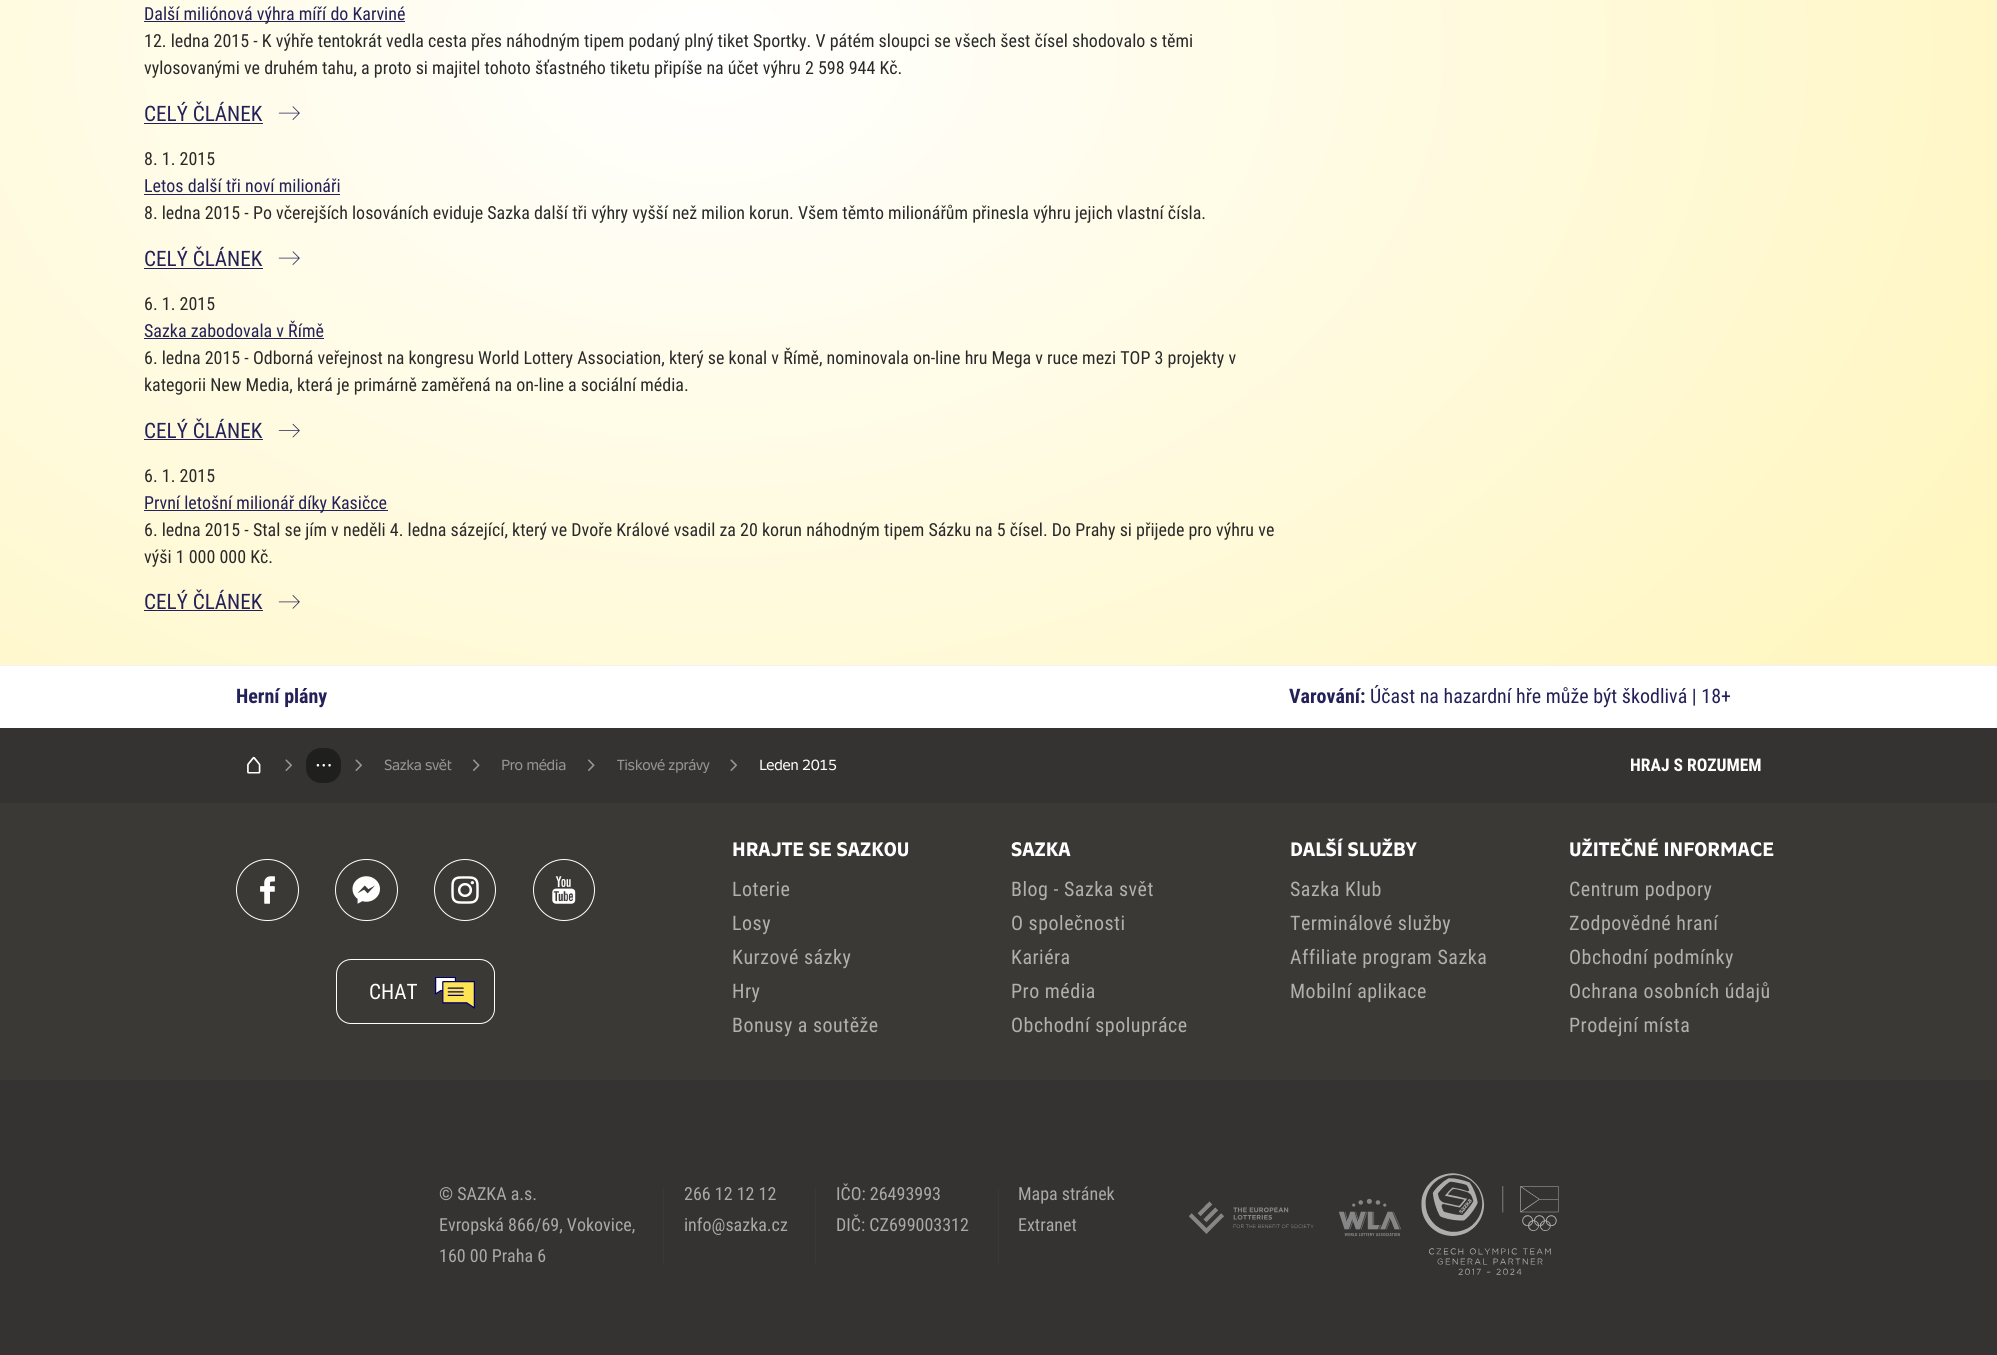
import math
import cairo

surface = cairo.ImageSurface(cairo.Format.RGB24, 1997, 1355)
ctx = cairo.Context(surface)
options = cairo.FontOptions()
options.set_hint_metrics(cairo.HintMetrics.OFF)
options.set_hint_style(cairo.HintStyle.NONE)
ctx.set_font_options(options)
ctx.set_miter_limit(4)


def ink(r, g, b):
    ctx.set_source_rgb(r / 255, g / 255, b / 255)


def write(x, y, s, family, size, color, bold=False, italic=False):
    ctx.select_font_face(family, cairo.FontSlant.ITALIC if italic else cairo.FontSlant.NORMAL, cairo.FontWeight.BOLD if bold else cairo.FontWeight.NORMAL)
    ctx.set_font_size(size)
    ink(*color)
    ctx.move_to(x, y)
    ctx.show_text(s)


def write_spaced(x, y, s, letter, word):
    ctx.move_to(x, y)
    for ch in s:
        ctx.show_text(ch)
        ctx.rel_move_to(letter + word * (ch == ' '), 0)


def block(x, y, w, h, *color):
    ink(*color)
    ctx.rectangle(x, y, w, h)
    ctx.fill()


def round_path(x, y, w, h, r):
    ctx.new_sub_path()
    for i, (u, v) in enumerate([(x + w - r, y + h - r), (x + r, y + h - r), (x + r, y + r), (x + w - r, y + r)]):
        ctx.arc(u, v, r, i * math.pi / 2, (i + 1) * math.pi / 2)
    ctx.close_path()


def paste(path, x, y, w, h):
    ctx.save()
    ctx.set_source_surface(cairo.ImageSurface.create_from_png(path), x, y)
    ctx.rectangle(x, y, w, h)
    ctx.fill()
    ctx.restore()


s1 = dict(family="Roboto Condensed", size=18, color=(35, 33, 87))
s2 = dict(family="Roboto Condensed", size=18, color=(41, 41, 41))
s3 = dict(family="Roboto Condensed", size=21.25, color=(35, 33, 87))
s4 = dict(family="Roboto Condensed", size=20, color=(35, 33, 87), bold=True)
s5 = dict(family="Roboto Condensed", size=20, color=(35, 33, 87))
s6 = dict(family="Roboto Condensed", size=17.5, color=(255, 255, 255), bold=True)
s7 = dict(family="Roboto Condensed", size=21.25, color=(255, 255, 255))
s8 = dict(family="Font", size=20, color=(255, 255, 255), bold=True)
s9 = dict(family="Roboto Condensed", size=18, color=(170, 169, 169))

ink(52, 51, 50)
ctx.paint()
gradient = cairo.RadialGradient(0, 0, 0, 0, 0, 1)
gradient.set_matrix(cairo.Matrix(1 / 1467, 0, 0, 1 / 1007, -1 * 707 / 1467, -1 * 48 / 1007))
gradient.add_color_stop_rgba(0, 1, 1, 1, 1)
gradient.add_color_stop_rgba(1, 1, 0.965, 0.753, 1)
ctx.set_source(gradient)
ctx.rectangle(0, 0, 1997, 665)
ctx.fill()
block(144, 21, 261, 1, 35, 33, 87)
write(144, 20, "Další miliónová výhra míří do Karviné", **s1)
write(144, 47, "12. ledna 2015 - K výhře tentokrát vedla cesta přes náhodným tipem podaný plný tiket Sportky. V pátém sloupci se všech šest čísel shodovalo s těmi", **s2)
write(144, 74, "vylosovanými ve druhém tahu, a proto si majitel tohoto šťastného tiketu připíše na účet výhru 2 598 944 Kč.", **s2)
write(144, 121, "CELÝ ČLÁNEK", **s3)
block(144, 123, 119, 1, 35, 33, 87)
paste("pic1.png", 278, 106, 22, 14)
write(144, 165, "8. 1. 2015", **s2)
write(144, 192, "Letos další tři noví milionáři", **s1)
block(144, 194, 196, 1, 35, 33, 87)
write(144, 219, "8. ledna 2015 - Po včerejších losováních eviduje Sazka další tři výhry vyšší než milion korun. Všem těmto milionářům přinesla výhru jejich vlastní čísla.", **s2)
write(144, 266, "CELÝ ČLÁNEK", **s3)
block(144, 268, 119, 1, 35, 33, 87)
paste("pic2.png", 278, 251, 22, 14)
write(144, 310, "6. 1. 2015", **s2)
write(144, 337, "Sazka zabodovala v Římě", **s1)
block(144, 338, 180, 1, 35, 33, 87)
write(144, 364, "6. ledna 2015 - Odborná veřejnost na kongresu World Lottery Association, který se konal v Římě, nominovala on-line hru Mega v ruce mezi TOP 3 projekty v", **s2)
write(144, 391, "kategorii New Media, která je primárně zaměřená na on-line a sociální média.", **s2)
write(144, 438, "CELÝ ČLÁNEK", **s3)
block(144, 439, 119, 1, 35, 33, 87)
paste("pic3.png", 278, 423, 22, 15)
write(144, 482, "6. 1. 2015", **s2)
block(144, 510, 244, 1, 35, 33, 87)
write(144, 509, "První letošní milionář díky Kasičce", **s1)
write(144, 536, "6. ledna 2015 - Stal se jím v neděli 4. ledna sázející, který ve Dvoře Králové vsadil za 20 korun náhodným tipem Sázku na 5 čísel. Do Prahy si přijede pro výhru ve", **s2)
write(144, 563, "výši 1 000 000 Kč.", **s2)
write(144, 609, "CELÝ ČLÁNEK", **s3)
block(144, 610, 119, 1, 35, 33, 87)
paste("pic4.png", 278, 595, 22, 14)
block(0, 666, 1997, 62, 255, 255, 255)
block(0, 665, 1997, 1, 242, 242, 242)
write(236, 703, "Herní plány", **s4)
write(1289, 703, "Varování:", **s4)
write(1370, 703, "Účast na hazardní hře může být škodlivá | 18+", **s5)
paste("pic5.png", 247, 756, 14, 18)
paste("pic6.png", 285, 759, 7, 12)
ink(31, 31, 30)
round_path(306, 748, 35, 35, 15)
ctx.fill()
paste("pic7.png", 316, 764, 15, 3)
paste("pic6.png", 355, 759, 7, 12)
ctx.select_font_face("Font")
ctx.set_font_size(15)
ink(149, 149, 148)
write_spaced(384, 770, "Sazka svět", -0.4, 0)
paste("pic8.png", 473, 759, 7, 12)
write_spaced(501, 770, "Pro média", -0.4, 0)
paste("pic8.png", 588, 759, 7, 12)
write_spaced(617, 770, "Tiskové zprávy", -0.4, 0)
paste("pic6.png", 730, 759, 7, 12)
ink(255, 255, 255)
write_spaced(759, 770, "Leden 2015", -0.4, 0)
write(1630, 771, "HRAJ S ROZUMEM", **s6)
block(0, 803, 1997, 277, 58, 57, 54)
round_path(236.5, 859.5, 62, 61, 30.5)
ink(255, 255, 255)
ctx.set_line_width(1)
ctx.stroke()
paste("pic9.png", 260, 876, 15, 28)
round_path(335.5, 859.5, 62, 61, 30.5)
ctx.stroke()
paste("pic10.png", 352, 876, 28, 28)
ctx.arc(465, 890, 30.5, 0, 2 * math.pi)
ctx.stroke()
paste("pic11.png", 451, 876, 28, 28)
ctx.arc(564, 890, 30.5, 0, 2 * math.pi)
ctx.stroke()
paste("pic12.png", 552, 876, 24, 28)
round_path(336.5, 959.5, 158, 64, 14.5)
ctx.stroke()
write(369, 999, "CHAT", **s7)
paste("pic13.png", 435, 977, 40, 32)
write(732, 856, "HRAJTE SE SAZKOU", **s8)
ctx.select_font_face("Roboto Condensed")
ink(176, 176, 175)
write_spaced(732, 896, "Loterie", 0.5, 0)
write_spaced(732, 930, "Losy", 0.5, 0)
write_spaced(732, 964, "Kurzové sázky", 0.5, 0)
write_spaced(732, 998, "Hry", 0.5, 0)
write_spaced(732, 1032, "Bonusy a soutěže", 0.5, 0)
write(1011, 856, "SAZKA", **s8)
ctx.select_font_face("Roboto Condensed")
ink(176, 176, 175)
write_spaced(1011, 896, "Blog - Sazka svět", 0.5, 0)
write_spaced(1011, 930, "O společnosti", 0.5, 0)
write_spaced(1011, 964, "Kariéra", 0.5, 0)
write_spaced(1011, 998, "Pro média", 0.5, 0)
write_spaced(1011, 1032, "Obchodní spolupráce", 0.5, 0)
write(1290, 856, "DALŠÍ SLUŽBY", **s8)
ctx.select_font_face("Roboto Condensed")
ink(176, 176, 175)
write_spaced(1290, 896, "Sazka Klub", 0.5, 0)
write_spaced(1290, 930, "Terminálové služby", 0.5, 0)
write_spaced(1290, 964, "Affiliate program Sazka", 0.5, 0)
write_spaced(1290, 998, "Mobilní aplikace", 0.5, 0)
write(1569, 856, "UŽITEČNÉ INFORMACE", **s8)
ctx.select_font_face("Roboto Condensed")
ink(176, 176, 175)
write_spaced(1569, 896, "Centrum podpory", 0.5, 0)
write_spaced(1569, 930, "Zodpovědné hraní", 0.5, 0)
write_spaced(1569, 964, "Obchodní podmínky", 0.5, 0)
write_spaced(1569, 998, "Ochrana osobních údajů", 0.5, 0)
write_spaced(1569, 1032, "Prodejní místa", 0.5, 0)
write(439, 1200, "© SAZKA a.s.", **s9)
block(663, 1189, 1, 75, 58, 57, 54)
write(439, 1231, "Evropská 866/69, Vokovice,", **s9)
write(439, 1262, "160 00 Praha 6", **s9)
write(684, 1200, "266 12 12 12", **s9)
block(815, 1189, 1, 75, 58, 57, 54)
write(684, 1231, "info@sazka.cz", **s9)
write(836, 1200, "IČO: 26493993", **s9)
block(998, 1189, 1, 75, 58, 57, 54)
write(836, 1231, "DIČ: CZ699003312", **s9)
write(1018, 1200, "Mapa stránek", **s9)
write(1018, 1231, "Extranet", **s9)
paste("pic14.png", 1189, 1201, 125, 33)
paste("pic15.png", 1339, 1198, 62, 39)
paste("pic16.png", 1421, 1173, 138, 102)
surface.write_to_png("screenshot.png")
